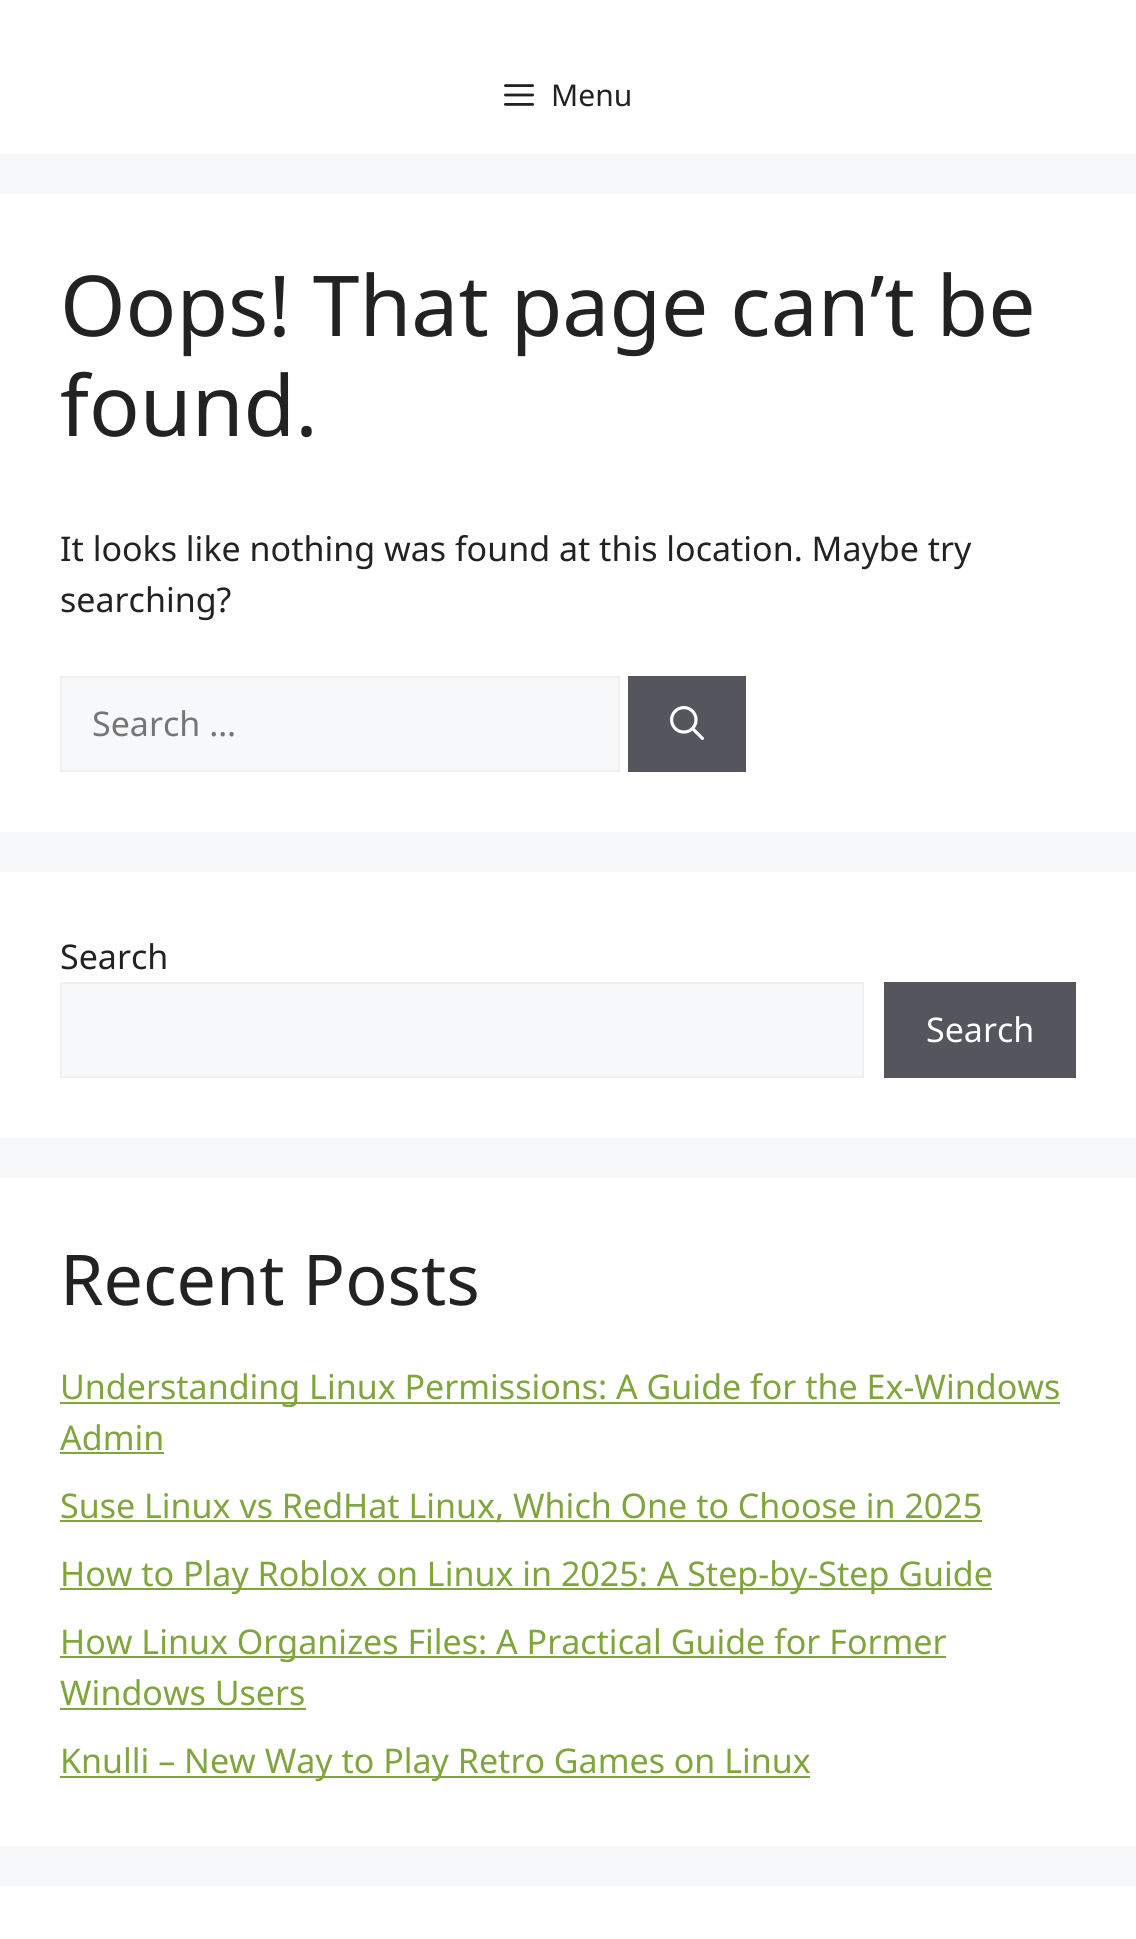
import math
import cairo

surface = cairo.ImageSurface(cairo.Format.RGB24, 1136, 1939)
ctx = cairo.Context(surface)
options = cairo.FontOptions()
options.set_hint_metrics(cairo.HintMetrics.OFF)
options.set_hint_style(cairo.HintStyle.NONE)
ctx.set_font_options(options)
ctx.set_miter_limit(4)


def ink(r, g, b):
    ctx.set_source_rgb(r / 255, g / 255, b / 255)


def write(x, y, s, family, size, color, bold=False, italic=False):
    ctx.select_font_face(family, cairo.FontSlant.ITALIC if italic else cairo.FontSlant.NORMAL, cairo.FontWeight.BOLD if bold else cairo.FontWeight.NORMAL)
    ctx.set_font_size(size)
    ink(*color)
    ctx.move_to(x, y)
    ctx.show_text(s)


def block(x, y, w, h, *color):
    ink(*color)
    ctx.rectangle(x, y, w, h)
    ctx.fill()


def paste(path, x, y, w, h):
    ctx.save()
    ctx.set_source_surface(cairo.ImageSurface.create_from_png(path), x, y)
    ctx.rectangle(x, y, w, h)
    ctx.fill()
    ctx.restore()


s1 = dict(family="Noto Sans", size=30, color=(34, 34, 34))
s2 = dict(family="Noto Sans", size=84, color=(34, 34, 34))
s3 = dict(family="Noto Sans", size=34, color=(34, 34, 34))
s4 = dict(family="Noto Sans", size=34, color=(117, 117, 117))
s5 = dict(family="Noto Sans", size=34, color=(255, 255, 255))
s6 = dict(family="Noto Sans", size=70, color=(34, 34, 34))
s7 = dict(family="Noto Sans", size=34, color=(127, 165, 60))

ink(247, 248, 249)
ctx.paint()
block(0, 0, 1136, 154, 255, 255, 255)
paste("pic1.png", 504, 84, 30, 22)
write(551, 106, "Menu", **s1)
block(0, 194, 1136, 638, 255, 255, 255)
write(60, 336, "Oops! That page can’t be", **s2)
write(60, 436, "found.", **s2)
write(60, 561, "It looks like nothing was found at this location. Maybe try", **s3)
write(60, 612, "searching?", **s3)
ink(247, 248, 249)
ctx.rectangle(61, 677, 558, 94)
ctx.fill_preserve()
ink(240, 240, 240)
ctx.stroke()
write(92, 736, "Search …", **s4)
block(628, 676, 118, 96, 85, 85, 94)
paste("pic2.png", 670, 706, 34, 34)
block(0, 872, 1136, 266, 255, 255, 255)
write(60, 969, "Search", **s3)
ink(247, 248, 249)
ctx.rectangle(61, 983, 802, 94)
ctx.fill_preserve()
ink(240, 240, 240)
ctx.stroke()
block(884, 982, 192, 96, 85, 85, 94)
write(926, 1042, "Search", **s5)
block(0, 1178, 1136, 668, 255, 255, 255)
write(60, 1305, "Recent Posts", **s6)
block(60, 1402, 1000, 2, 127, 165, 60)
write(60, 1399, "Understanding Linux Permissions: A Guide for the Ex-Windows", **s7)
write(60, 1450, "Admin", **s7)
block(60, 1452, 104, 2, 127, 165, 60)
block(60, 1520, 922, 2, 127, 165, 60)
write(60, 1518, "Suse Linux vs RedHat Linux, Which One to Choose in 2025", **s7)
block(60, 1588, 932, 2, 127, 165, 60)
write(60, 1586, "How to Play Roblox on Linux in 2025: A Step-by-Step Guide", **s7)
block(60, 1656, 886, 2, 127, 165, 60)
write(60, 1654, "How Linux Organizes Files: A Practical Guide for Former", **s7)
write(60, 1705, "Windows Users", **s7)
block(60, 1708, 246, 2, 127, 165, 60)
block(60, 1776, 750, 2, 127, 165, 60)
write(60, 1773, "Knulli – New Way to Play Retro Games on Linux", **s7)
block(0, 1886, 1136, 53, 255, 255, 255)
surface.write_to_png("screenshot.png")
